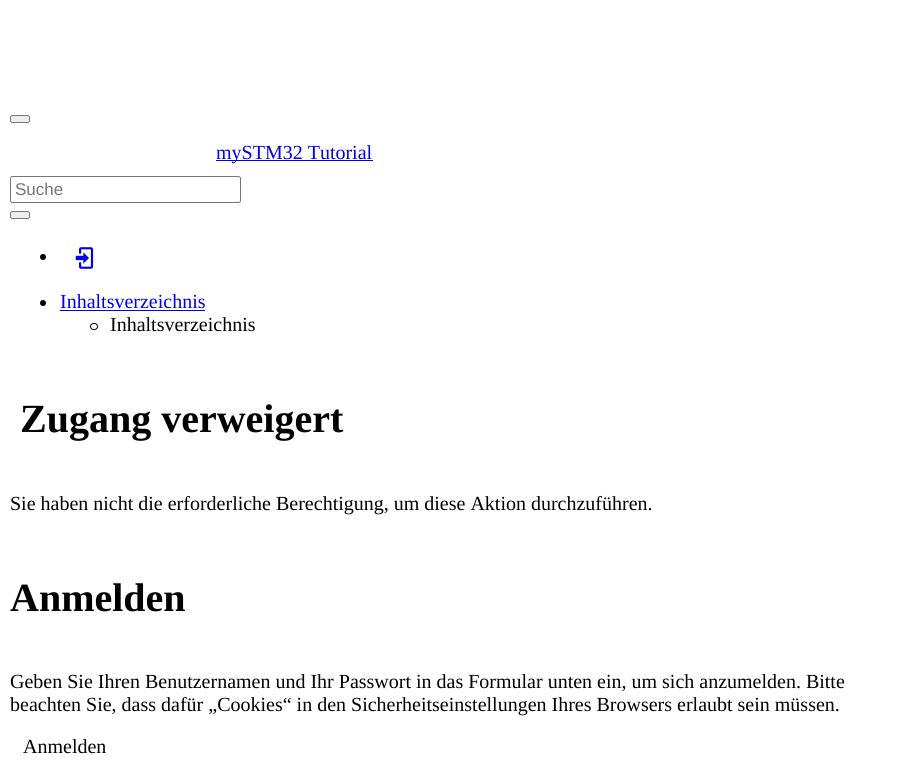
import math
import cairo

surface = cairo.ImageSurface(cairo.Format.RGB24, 897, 773)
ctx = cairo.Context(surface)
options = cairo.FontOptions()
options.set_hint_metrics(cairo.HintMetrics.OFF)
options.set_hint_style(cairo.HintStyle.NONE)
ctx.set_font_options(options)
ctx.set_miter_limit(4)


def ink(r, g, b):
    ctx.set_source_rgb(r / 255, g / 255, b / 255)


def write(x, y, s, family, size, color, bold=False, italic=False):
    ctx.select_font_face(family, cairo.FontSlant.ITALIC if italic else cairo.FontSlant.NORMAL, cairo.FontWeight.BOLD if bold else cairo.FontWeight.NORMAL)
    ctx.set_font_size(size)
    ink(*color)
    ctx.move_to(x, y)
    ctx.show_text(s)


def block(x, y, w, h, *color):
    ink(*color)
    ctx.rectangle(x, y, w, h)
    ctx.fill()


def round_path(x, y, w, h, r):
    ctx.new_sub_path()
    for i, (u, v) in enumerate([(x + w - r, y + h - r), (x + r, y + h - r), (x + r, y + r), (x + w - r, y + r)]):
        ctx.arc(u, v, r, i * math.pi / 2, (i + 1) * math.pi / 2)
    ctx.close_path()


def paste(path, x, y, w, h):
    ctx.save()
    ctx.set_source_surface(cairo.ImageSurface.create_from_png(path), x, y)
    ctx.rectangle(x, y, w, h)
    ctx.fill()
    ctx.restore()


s1 = dict(family="Liberation Serif", size=20, color=(0, 0, 238))
s2 = dict(family="Liberation Sans", size=17, color=(117, 117, 117))
s3 = dict(family="Liberation Serif", size=20, color=(0, 0, 0))
s4 = dict(family="Liberation Serif", size=40, color=(0, 0, 0), bold=True)

ink(255, 255, 255)
ctx.paint()
ink(239, 239, 239)
round_path(10.5, 115.5, 19, 7, 2)
ctx.fill_preserve()
ink(118, 118, 118)
ctx.set_line_width(1)
ctx.stroke()
block(216, 160, 157, 1, 0, 0, 238)
write(216, 159, "mySTM32 Tutorial", **s1)
round_path(10.5, 176.5, 230, 26, 2)
ink(118, 118, 118)
ctx.stroke()
write(15, 195, "Suche", **s2)
ink(239, 239, 239)
round_path(10.5, 211.5, 19, 7, 2)
ctx.fill_preserve()
ink(118, 118, 118)
ctx.stroke()
ink(0, 0, 0)
ctx.arc(43, 257, 3, 0, 2 * math.pi)
ctx.fill()
paste("pic1.png", 75, 247, 19, 22)
ctx.arc(43, 303, 3, 0, 2 * math.pi)
ctx.fill()
write(60, 308, "Inhaltsverzeichnis", **s1)
block(60, 310, 145, 1, 0, 0, 238)
round_path(90.5, 323.5, 7, 6, 3)
ink(0, 0, 0)
ctx.stroke()
write(110, 331, "Inhaltsverzeichnis", **s3)
write(20, 432, "Zugang verweigert", **s4)
write(10, 510, "Sie haben nicht die erforderliche Berechtigung, um diese Aktion durchzuführen.", **s3)
write(10, 611, "Anmelden", **s4)
write(10, 688, "Geben Sie Ihren Benutzernamen und Ihr Passwort in das Formular unten ein, um sich anzumelden. Bitte", **s3)
write(10, 711, "beachten Sie, dass dafür „Cookies“ in den Sicherheitseinstellungen Ihres Browsers erlaubt sein müssen.", **s3)
write(23, 753, "Anmelden", **s3)
surface.write_to_png("screenshot.png")
